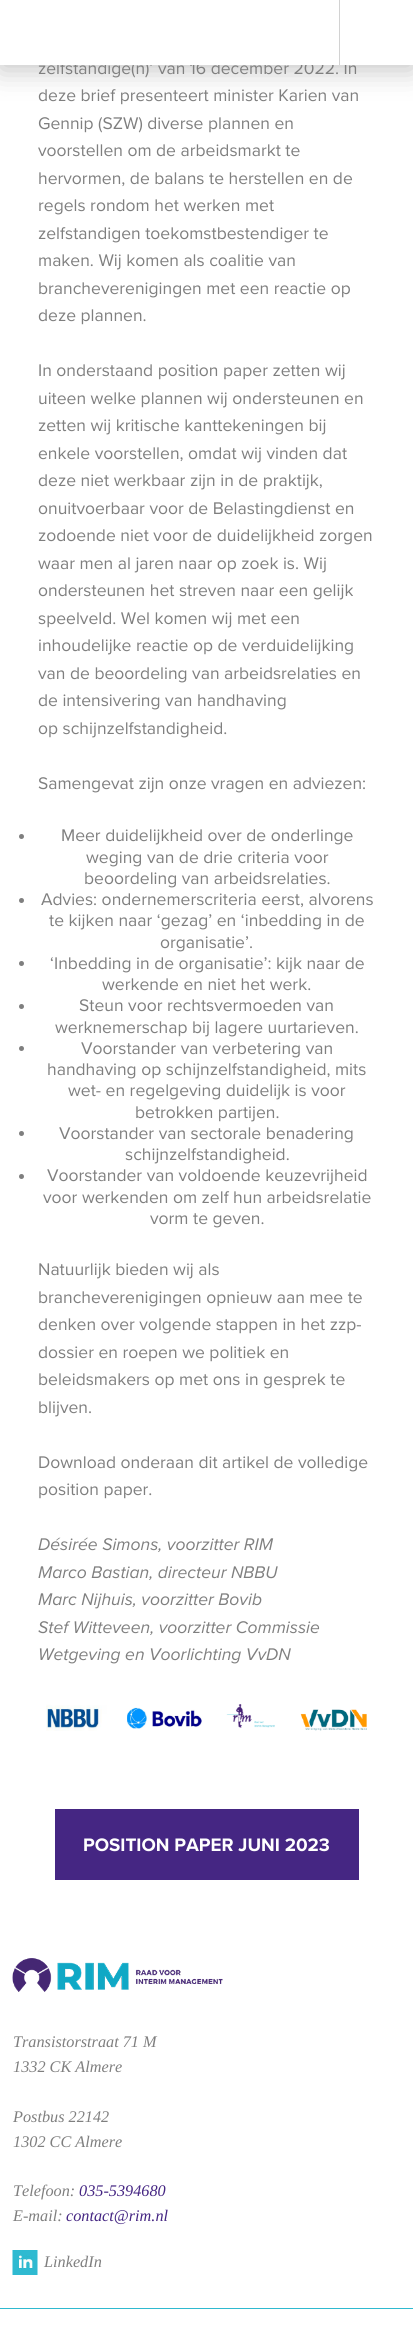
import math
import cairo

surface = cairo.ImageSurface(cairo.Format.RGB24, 413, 2338)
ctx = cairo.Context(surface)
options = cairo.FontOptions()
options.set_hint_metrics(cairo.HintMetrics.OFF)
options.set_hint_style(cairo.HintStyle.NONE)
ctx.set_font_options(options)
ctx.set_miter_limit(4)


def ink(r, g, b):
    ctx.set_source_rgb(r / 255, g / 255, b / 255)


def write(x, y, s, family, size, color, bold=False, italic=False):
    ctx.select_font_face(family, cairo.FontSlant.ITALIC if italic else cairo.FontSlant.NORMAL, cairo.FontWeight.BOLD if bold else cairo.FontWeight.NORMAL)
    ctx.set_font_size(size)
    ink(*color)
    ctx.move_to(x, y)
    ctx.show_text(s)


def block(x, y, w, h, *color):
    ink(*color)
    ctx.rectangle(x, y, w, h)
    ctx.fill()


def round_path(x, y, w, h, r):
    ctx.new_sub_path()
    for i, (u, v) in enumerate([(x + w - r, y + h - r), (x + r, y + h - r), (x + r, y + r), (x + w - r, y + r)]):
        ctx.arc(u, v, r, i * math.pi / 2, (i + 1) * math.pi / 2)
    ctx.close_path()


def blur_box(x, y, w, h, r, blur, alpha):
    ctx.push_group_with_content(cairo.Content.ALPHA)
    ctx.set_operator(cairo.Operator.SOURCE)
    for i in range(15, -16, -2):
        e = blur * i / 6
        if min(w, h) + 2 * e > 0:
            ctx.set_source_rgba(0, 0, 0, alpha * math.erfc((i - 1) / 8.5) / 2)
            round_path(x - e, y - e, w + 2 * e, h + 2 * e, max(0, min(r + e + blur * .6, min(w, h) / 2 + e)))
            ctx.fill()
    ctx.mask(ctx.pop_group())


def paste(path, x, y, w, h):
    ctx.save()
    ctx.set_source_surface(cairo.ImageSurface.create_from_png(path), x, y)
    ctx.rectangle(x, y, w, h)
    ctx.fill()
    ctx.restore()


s1 = dict(family="Proxima Nova", size=17.5, color=(127, 127, 127))
s2 = dict(family="Proxima Nova", size=17.5, color=(127, 127, 127), italic=True)
s3 = dict(family="Proxima Nova", size=18.75, color=(255, 255, 255), bold=True)
s4 = dict(family="Liberation Serif", size=16.25, color=(127, 127, 127), italic=True)
s5 = dict(family="Liberation Serif", size=16.25, color=(69, 38, 131), italic=True)

ink(255, 255, 255)
ctx.paint()
ink(0, 0, 0)
blur_box(0, 5, 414, 65, 0, 14.5, 0.23)
write(38, 74, "zelfstandige(n)’ van 16 december 2022. In", **s1)
block(0, 0, 413, 65, 255, 255, 255)
block(339, 0, 1, 65, 210, 210, 210)
write(38, 101, "deze brief presenteert minister Karien van", **s1)
write(38, 129, "Gennip (SZW) diverse plannen en", **s1)
write(38, 156, "voorstellen om de arbeidsmarkt te", **s1)
write(38, 184, "hervormen, de balans te herstellen en de", **s1)
write(38, 211, "regels rondom het werken met", **s1)
write(38, 239, "zelfstandigen toekomstbestendiger te", **s1)
write(38, 266, "maken. Wij komen als coalitie van", **s1)
write(38, 294, "brancheverenigingen met een reactie op", **s1)
write(38, 321, "deze plannen.", **s1)
write(38, 376, "In onderstaand position paper zetten wij", **s1)
write(38, 404, "uiteen welke plannen wij ondersteunen en", **s1)
write(38, 431, "zetten wij kritische kanttekeningen bij", **s1)
write(38, 459, "enkele voorstellen, omdat wij vinden dat", **s1)
write(38, 486, "deze niet werkbaar zijn in de praktijk,", **s1)
write(38, 514, "onuitvoerbaar voor de Belastingdienst en", **s1)
write(38, 541, "zodoende niet voor de duidelijkheid zorgen", **s1)
write(38, 569, "waar men al jaren naar op zoek is. Wij", **s1)
write(38, 596, "ondersteunen het streven naar een gelijk", **s1)
write(38, 624, "speelveld. Wel komen wij met een", **s1)
write(38, 651, "inhoudelijke reactie op de verduidelijking", **s1)
write(38, 679, "van de beoordeling van arbeidsrelaties en", **s1)
write(38, 706, "de intensivering van handhaving", **s1)
write(38, 734, "op schijnzelfstandigheid.", **s1)
write(38, 789, "Samengevat zijn onze vragen en adviezen:", **s1)
ctx.new_path()
ctx.arc(21.5, 836.5, 2.5, 0, 2 * math.pi)
ctx.fill()
write(61, 841, "Meer duidelijkheid over de onderlinge", **s1)
write(86, 863, "weging van de drie criteria voor", **s1)
write(84, 884, "beoordeling van arbeidsrelaties.", **s1)
ctx.new_path()
ctx.arc(21.5, 900.5, 2.5, 0, 2 * math.pi)
ctx.fill()
write(41, 905, "Advies: ondernemerscriteria eerst, alvorens", **s1)
write(49, 926, "te kijken naar ‘gezag’ en ‘inbedding in de", **s1)
write(160, 948, "organisatie’.", **s1)
ctx.new_path()
ctx.arc(21.5, 963.5, 2.5, 0, 2 * math.pi)
ctx.fill()
write(50, 969, "‘Inbedding in de organisatie’: kijk naar de", **s1)
write(102, 990, "werkende en niet het werk.", **s1)
ctx.new_path()
ctx.arc(21.5, 1006.5, 2.5, 0, 2 * math.pi)
ctx.fill()
write(79, 1011, "Steun voor rechtsvermoeden van", **s1)
write(55, 1033, "werknemerschap bij lagere uurtarieven.", **s1)
ctx.new_path()
ctx.arc(21.5, 1048.5, 2.5, 0, 2 * math.pi)
ctx.fill()
write(81, 1054, "Voorstander van verbetering van", **s1)
write(47, 1075, "handhaving op schijnzelfstandigheid, mits", **s1)
write(68, 1096, "wet- en regelgeving duidelijk is voor", **s1)
write(135, 1118, "betrokken partijen.", **s1)
ctx.new_path()
ctx.arc(21.5, 1133.5, 2.5, 0, 2 * math.pi)
ctx.fill()
write(59, 1139, "Voorstander van sectorale benadering", **s1)
write(125, 1160, "schijnzelfstandigheid.", **s1)
ctx.new_path()
ctx.arc(21.5, 1176.5, 2.5, 0, 2 * math.pi)
ctx.fill()
write(47, 1181, "Voorstander van voldoende keuzevrijheid", **s1)
write(43, 1203, "voor werkenden om zelf hun arbeidsrelatie", **s1)
write(150, 1224, "vorm te geven.", **s1)
write(38, 1275, "Natuurlijk bieden wij als", **s1)
write(38, 1303, "brancheverenigingen opnieuw aan mee te", **s1)
write(38, 1330, "denken over volgende stappen in het zzp-", **s1)
write(38, 1358, "dossier en roepen we politiek en", **s1)
write(38, 1385, "beleidsmakers op met ons in gesprek te", **s1)
write(38, 1413, "blijven.", **s1)
write(38, 1468, "Download onderaan dit artikel de volledige", **s1)
write(38, 1495, "position paper.", **s1)
write(38, 1550, "Désirée Simons, voorzitter RIM", **s2)
write(38, 1578, "Marco Bastian, directeur NBBU", **s2)
write(38, 1605, "Marc Nijhuis, voorzitter Bovib", **s2)
write(38, 1633, "Stef Witteveen, voorzitter Commissie", **s2)
write(38, 1660, "Wetgeving en Voorlichting VvDN", **s2)
paste("pic1.png", 46, 1704, 321, 27)
block(55, 1809, 304, 71, 69, 38, 131)
write(83, 1851, "POSITION PAPER JUNI 2023", **s3)
paste("pic2.png", 12, 1958, 211, 34)
block(0, 2308, 413, 1, 47, 186, 208)
write(13, 2047, "Transistorstraat 71 M", **s4)
write(13, 2072, "1332 CK Almere", **s4)
write(13, 2122, "Postbus 22142", **s4)
write(13, 2147, "1302 CC Almere", **s4)
write(13, 2196, "Telefoon:", **s4)
write(79, 2196, "035-5394680", **s5)
write(13, 2221, "E-mail:", **s4)
write(66, 2221, "contact@rim.nl", **s5)
paste("pic3.png", 12, 2250, 26, 25)
write(44, 2267, "LinkedIn", **s4)
surface.write_to_png("screenshot.png")
